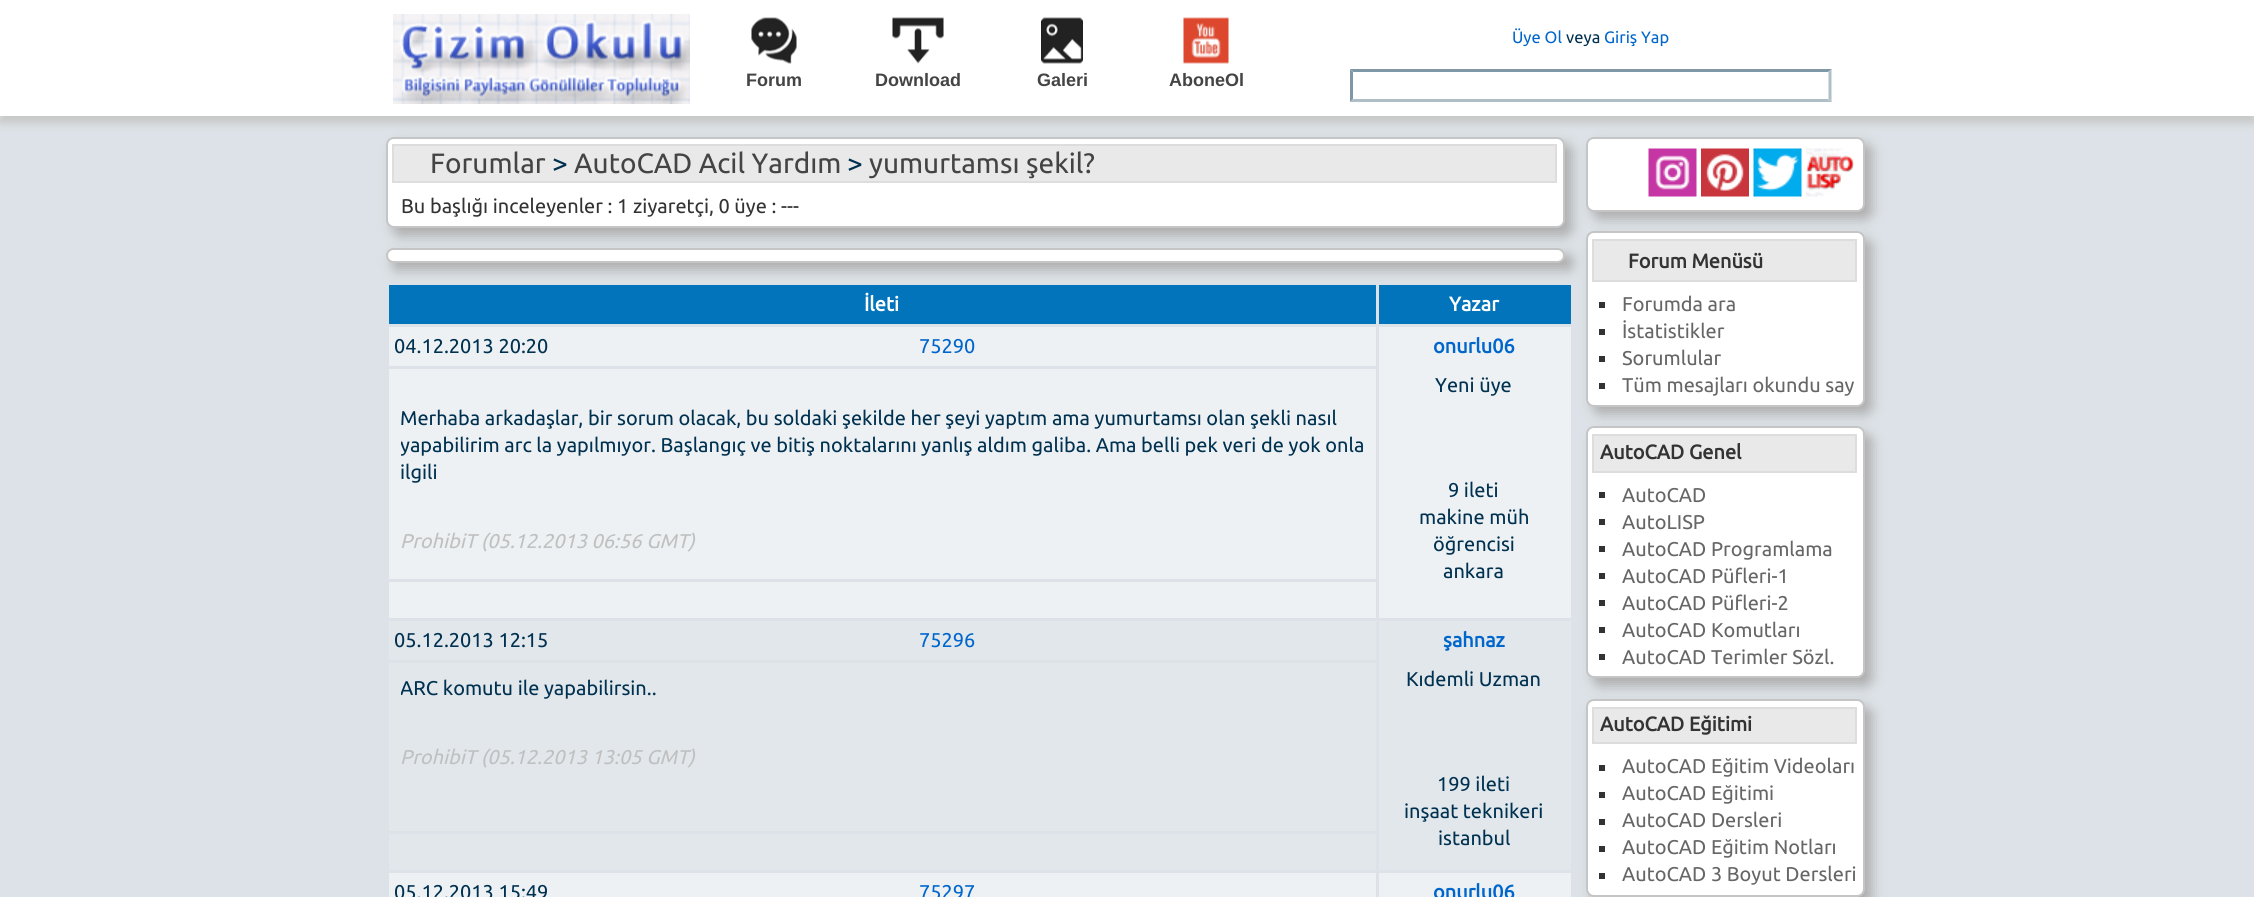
import math
import cairo

surface = cairo.ImageSurface(cairo.Format.RGB24, 2254, 897)
ctx = cairo.Context(surface)
options = cairo.FontOptions()
options.set_hint_metrics(cairo.HintMetrics.OFF)
options.set_hint_style(cairo.HintStyle.NONE)
ctx.set_font_options(options)
ctx.set_miter_limit(4)


def ink(r, g, b):
    ctx.set_source_rgb(r / 255, g / 255, b / 255)


def write(x, y, s, family, size, color, bold=False, italic=False):
    ctx.select_font_face(family, cairo.FontSlant.ITALIC if italic else cairo.FontSlant.NORMAL, cairo.FontWeight.BOLD if bold else cairo.FontWeight.NORMAL)
    ctx.set_font_size(size)
    ink(*color)
    ctx.move_to(x, y)
    ctx.show_text(s)


def block(x, y, w, h, *color):
    ink(*color)
    ctx.rectangle(x, y, w, h)
    ctx.fill()


def round_path(x, y, w, h, r):
    ctx.new_sub_path()
    for i, (u, v) in enumerate([(x + w - r, y + h - r), (x + r, y + h - r), (x + r, y + r), (x + w - r, y + r)]):
        ctx.arc(u, v, r, i * math.pi / 2, (i + 1) * math.pi / 2)
    ctx.close_path()


def blur_box(x, y, w, h, r, blur, alpha):
    ctx.push_group_with_content(cairo.Content.ALPHA)
    ctx.set_operator(cairo.Operator.SOURCE)
    for i in range(15, -16, -2):
        e = blur * i / 6
        if min(w, h) + 2 * e > 0:
            ctx.set_source_rgba(0, 0, 0, alpha * math.erfc((i - 1) / 8.5) / 2)
            round_path(x - e, y - e, w + 2 * e, h + 2 * e, max(0, min(r + e + blur * .6, min(w, h) / 2 + e)))
            ctx.fill()
    ctx.mask(ctx.pop_group())


def paste(path, x, y, w, h):
    ctx.save()
    ctx.set_source_surface(cairo.ImageSurface.create_from_png(path), x, y)
    ctx.rectangle(x, y, w, h)
    ctx.fill()
    ctx.restore()


s1 = dict(family="Ubuntu", size=16.5, color=(0, 102, 204))
s2 = dict(family="Ubuntu", size=16.5, color=(0, 49, 80))
s3 = dict(family="Liberation Sans", size=18, color=(68, 68, 68), bold=True)
s4 = dict(family="Ubuntu", size=28, color=(68, 68, 68))
s5 = dict(family="Ubuntu", size=28, color=(0, 49, 80))
s6 = dict(family="Ubuntu", size=19.95, color=(51, 51, 51))
s7 = dict(family="Ubuntu", size=19.95, color=(255, 255, 255), bold=True)
s8 = dict(family="Ubuntu", size=19.95, color=(0, 49, 80))
s9 = dict(family="Ubuntu", size=19.95, color=(0, 102, 204))
s10 = dict(family="Ubuntu", size=19.95, color=(0, 102, 204), bold=True)
s11 = dict(family="Ubuntu", size=19.95, color=(192, 192, 192), italic=True)
s12 = dict(family="Ubuntu", size=19.95, color=(51, 51, 51), bold=True)
s13 = dict(family="Ubuntu", size=19.95, color=(102, 102, 102))

ink(220, 226, 231)
ctx.paint()
ink(199, 199, 199)
blur_box(0, 8, 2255, 115, 0, 4, 1)
block(0, 0, 2254, 116, 255, 255, 255)
paste("pic1.png", 393, 14, 297, 90)
write(1512, 43, "Üye Ol", **s1)
write(1566, 43, "veya", **s2)
write(1604, 43, "Giriş Yap", **s1)
paste("pic2.png", 751, 17, 46, 47)
paste("pic3.png", 892, 17, 52, 47)
paste("pic4.png", 1041, 17, 42, 47)
paste("pic5.png", 1183, 17, 46, 47)
write(746, 86, "Forum", **s3)
write(875, 86, "Download", **s3)
write(1037, 86, "Galeri", **s3)
write(1169, 86, "AboneOl", **s3)
ink(127, 152, 167)
ctx.new_path()
ctx.move_to(1350, 69)
ctx.line_to(1832, 69)
ctx.line_to(1828, 72)
ctx.line_to(1353, 72)
ctx.close_path()
ctx.fill()
ink(175, 191, 200)
ctx.new_path()
ctx.move_to(1831.5, 69)
ctx.line_to(1831.5, 102)
ctx.line_to(1828.5, 99)
ctx.line_to(1828.5, 72)
ctx.close_path()
ctx.fill()
ctx.new_path()
ctx.move_to(1832, 102)
ctx.line_to(1350, 102)
ctx.line_to(1353, 99)
ctx.line_to(1828, 99)
ctx.close_path()
ctx.fill()
ink(127, 152, 167)
ctx.new_path()
ctx.move_to(1350, 102)
ctx.line_to(1350, 69)
ctx.line_to(1353, 72)
ctx.line_to(1353, 99)
ctx.close_path()
ctx.fill()
ink(173, 173, 173)
blur_box(1593, 144, 279, 75, 8, 6, 1)
ink(255, 255, 255)
round_path(1587, 138, 277, 73, 7)
ctx.fill_preserve()
ink(197, 197, 197)
ctx.stroke()
ink(173, 173, 173)
blur_box(1593, 239, 279, 175, 8, 6, 1)
ink(255, 255, 255)
round_path(1587, 232, 277, 174, 7)
ctx.fill_preserve()
ink(197, 197, 197)
ctx.stroke()
ink(173, 173, 173)
blur_box(393, 144, 1179, 92, 8, 6, 1)
ink(255, 255, 255)
round_path(387, 138, 1177, 89, 7)
ctx.fill_preserve()
ink(197, 197, 197)
ctx.stroke()
ink(233, 233, 233)
ctx.rectangle(393, 145, 1163, 37)
ctx.fill_preserve()
ink(221, 221, 221)
ctx.stroke()
write(430, 173, "Forumlar", **s4)
write(552, 173, ">", **s5)
write(574, 173, "AutoCAD Acil Yardım", **s4)
write(847, 173, ">", **s5)
write(869, 173, "yumurtamsı şekil?", **s4)
write(401, 213, "Bu başlığı inceleyenler : 1 ziyaretçi, 0 üye : ---", **s6)
ink(173, 173, 173)
blur_box(393, 255, 1179, 15, 7.5, 6, 1)
ink(255, 255, 255)
round_path(387, 249, 1177, 13, 6.5)
ctx.fill_preserve()
ink(197, 197, 197)
ctx.stroke()
block(389, 285, 987, 39, 1, 116, 187)
write(864, 311, "İleti", **s7)
block(1379, 285, 192, 39, 1, 116, 187)
write(1449, 311, "Yazar", **s7)
block(389, 327, 987, 39, 237, 241, 243)
write(394, 353, "04.12.2013 20:20", **s8)
write(919, 353, "75290", **s9)
block(1379, 327, 192, 291, 237, 241, 243)
write(1433, 353, "onurlu06", **s10)
write(1435, 392, "Yeni üye", **s8)
write(1448, 497, "9 ileti", **s8)
write(1419, 524, "makine müh", **s8)
write(1433, 551, "öğrencisi", **s8)
write(1443, 578, "ankara", **s8)
block(389, 369, 987, 210, 237, 241, 243)
write(400, 425, "Merhaba arkadaşlar, bir sorum olacak, bu soldaki şekilde her şeyi yaptım ama yumurtamsı olan şekli nasıl", **s8)
ctx.save()
ctx.rectangle(401, 381, 967, 105)
ctx.clip()
write(400, 452, "yapabilirim arc la yapılmıyor. Başlangıç ve bitiş noktalarını yanlış aldım galiba. Ama belli pek veri de yok onla", **s8)
ctx.restore()
write(400, 479, "ilgili", **s8)
write(400, 548, "ProhibiT (05.12.2013 06:56 GMT)", **s11)
block(389, 582, 987, 36, 237, 241, 243)
block(389, 621, 987, 39, 225, 231, 235)
write(394, 647, "05.12.2013 12:15", **s8)
write(919, 647, "75296", **s9)
block(1379, 621, 192, 249, 225, 231, 235)
write(1443, 647, "şahnaz", **s10)
write(1406, 686, "Kıdemli Uzman", **s8)
write(1437, 791, "199 ileti", **s8)
write(1404, 818, "inşaat teknikeri", **s8)
write(1438, 845, "istanbul", **s8)
block(389, 663, 987, 168, 225, 231, 235)
ctx.save()
ctx.rectangle(401, 675, 967, 27)
ctx.clip()
write(400, 695, "ARC komutu ile yapabilirsin..", **s8)
ctx.restore()
write(400, 764, "ProhibiT (05.12.2013 13:05 GMT)", **s11)
block(389, 834, 987, 36, 225, 231, 235)
block(389, 873, 987, 24, 237, 241, 243)
write(394, 899, "05.12.2013 15:49", **s8)
write(919, 899, "75297", **s9)
block(1379, 873, 192, 24, 237, 241, 243)
write(1433, 899, "onurlu06", **s10)
paste("pic6.png", 1648, 148, 49, 49)
paste("pic7.png", 1701, 148, 48, 49)
paste("pic8.png", 1753, 148, 49, 49)
paste("pic9.png", 1806, 148, 48, 49)
ink(233, 233, 233)
ctx.rectangle(1593, 240, 263, 41)
ctx.fill_preserve()
ink(221, 221, 221)
ctx.stroke()
write(1628, 268, "Forum Menüsü", **s12)
block(1599, 302, 6, 6, 51, 51, 51)
write(1622, 311, "Forumda ara", **s13)
block(1599, 329, 6, 6, 51, 51, 51)
write(1622, 338, "İstatistikler", **s13)
block(1599, 356, 6, 6, 51, 51, 51)
write(1622, 365, "Sorumlular", **s13)
block(1599, 383, 6, 6, 51, 51, 51)
write(1622, 392, "Tüm mesajları okundu say", **s13)
ink(173, 173, 173)
blur_box(1593, 434, 279, 252, 8, 6, 1)
ink(255, 255, 255)
round_path(1587, 427, 277, 250, 7)
ctx.fill_preserve()
ink(197, 197, 197)
ctx.stroke()
ink(233, 233, 233)
ctx.rectangle(1593, 435, 263, 37)
ctx.fill_preserve()
ink(221, 221, 221)
ctx.stroke()
write(1600, 459, "AutoCAD Genel", **s12)
block(1599, 492, 6, 6, 51, 51, 51)
write(1622, 502, "AutoCAD", **s13)
block(1599, 519, 6, 6, 51, 51, 51)
write(1622, 529, "AutoLISP", **s13)
block(1599, 546, 6, 6, 51, 51, 51)
write(1622, 556, "AutoCAD Programlama", **s13)
block(1599, 573, 6, 6, 51, 51, 51)
write(1622, 583, "AutoCAD Püfleri-1", **s13)
block(1599, 600, 6, 6, 51, 51, 51)
write(1622, 610, "AutoCAD Püfleri-2", **s13)
block(1599, 627, 6, 6, 51, 51, 51)
write(1622, 637, "AutoCAD Komutları", **s13)
block(1599, 654, 6, 6, 51, 51, 51)
write(1622, 664, "AutoCAD Terimler Sözl.", **s13)
ink(173, 173, 173)
blur_box(1593, 707, 279, 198, 8, 6, 1)
ink(255, 255, 255)
round_path(1587, 700, 277, 196, 7)
ctx.fill_preserve()
ink(197, 197, 197)
ctx.stroke()
ink(233, 233, 233)
ctx.rectangle(1593, 708, 263, 35)
ctx.fill_preserve()
ink(221, 221, 221)
ctx.stroke()
write(1600, 731, "AutoCAD Eğitimi", **s12)
block(1599, 765, 6, 6, 51, 51, 51)
write(1622, 773, "AutoCAD Eğitim Videoları", **s13)
block(1599, 792, 6, 6, 51, 51, 51)
write(1622, 800, "AutoCAD Eğitimi", **s13)
block(1599, 819, 6, 6, 51, 51, 51)
write(1622, 827, "AutoCAD Dersleri", **s13)
block(1599, 846, 6, 6, 51, 51, 51)
write(1622, 854, "AutoCAD Eğitim Notları", **s13)
block(1599, 873, 6, 6, 51, 51, 51)
write(1622, 881, "AutoCAD 3 Boyut Dersleri", **s13)
surface.write_to_png("screenshot.png")
